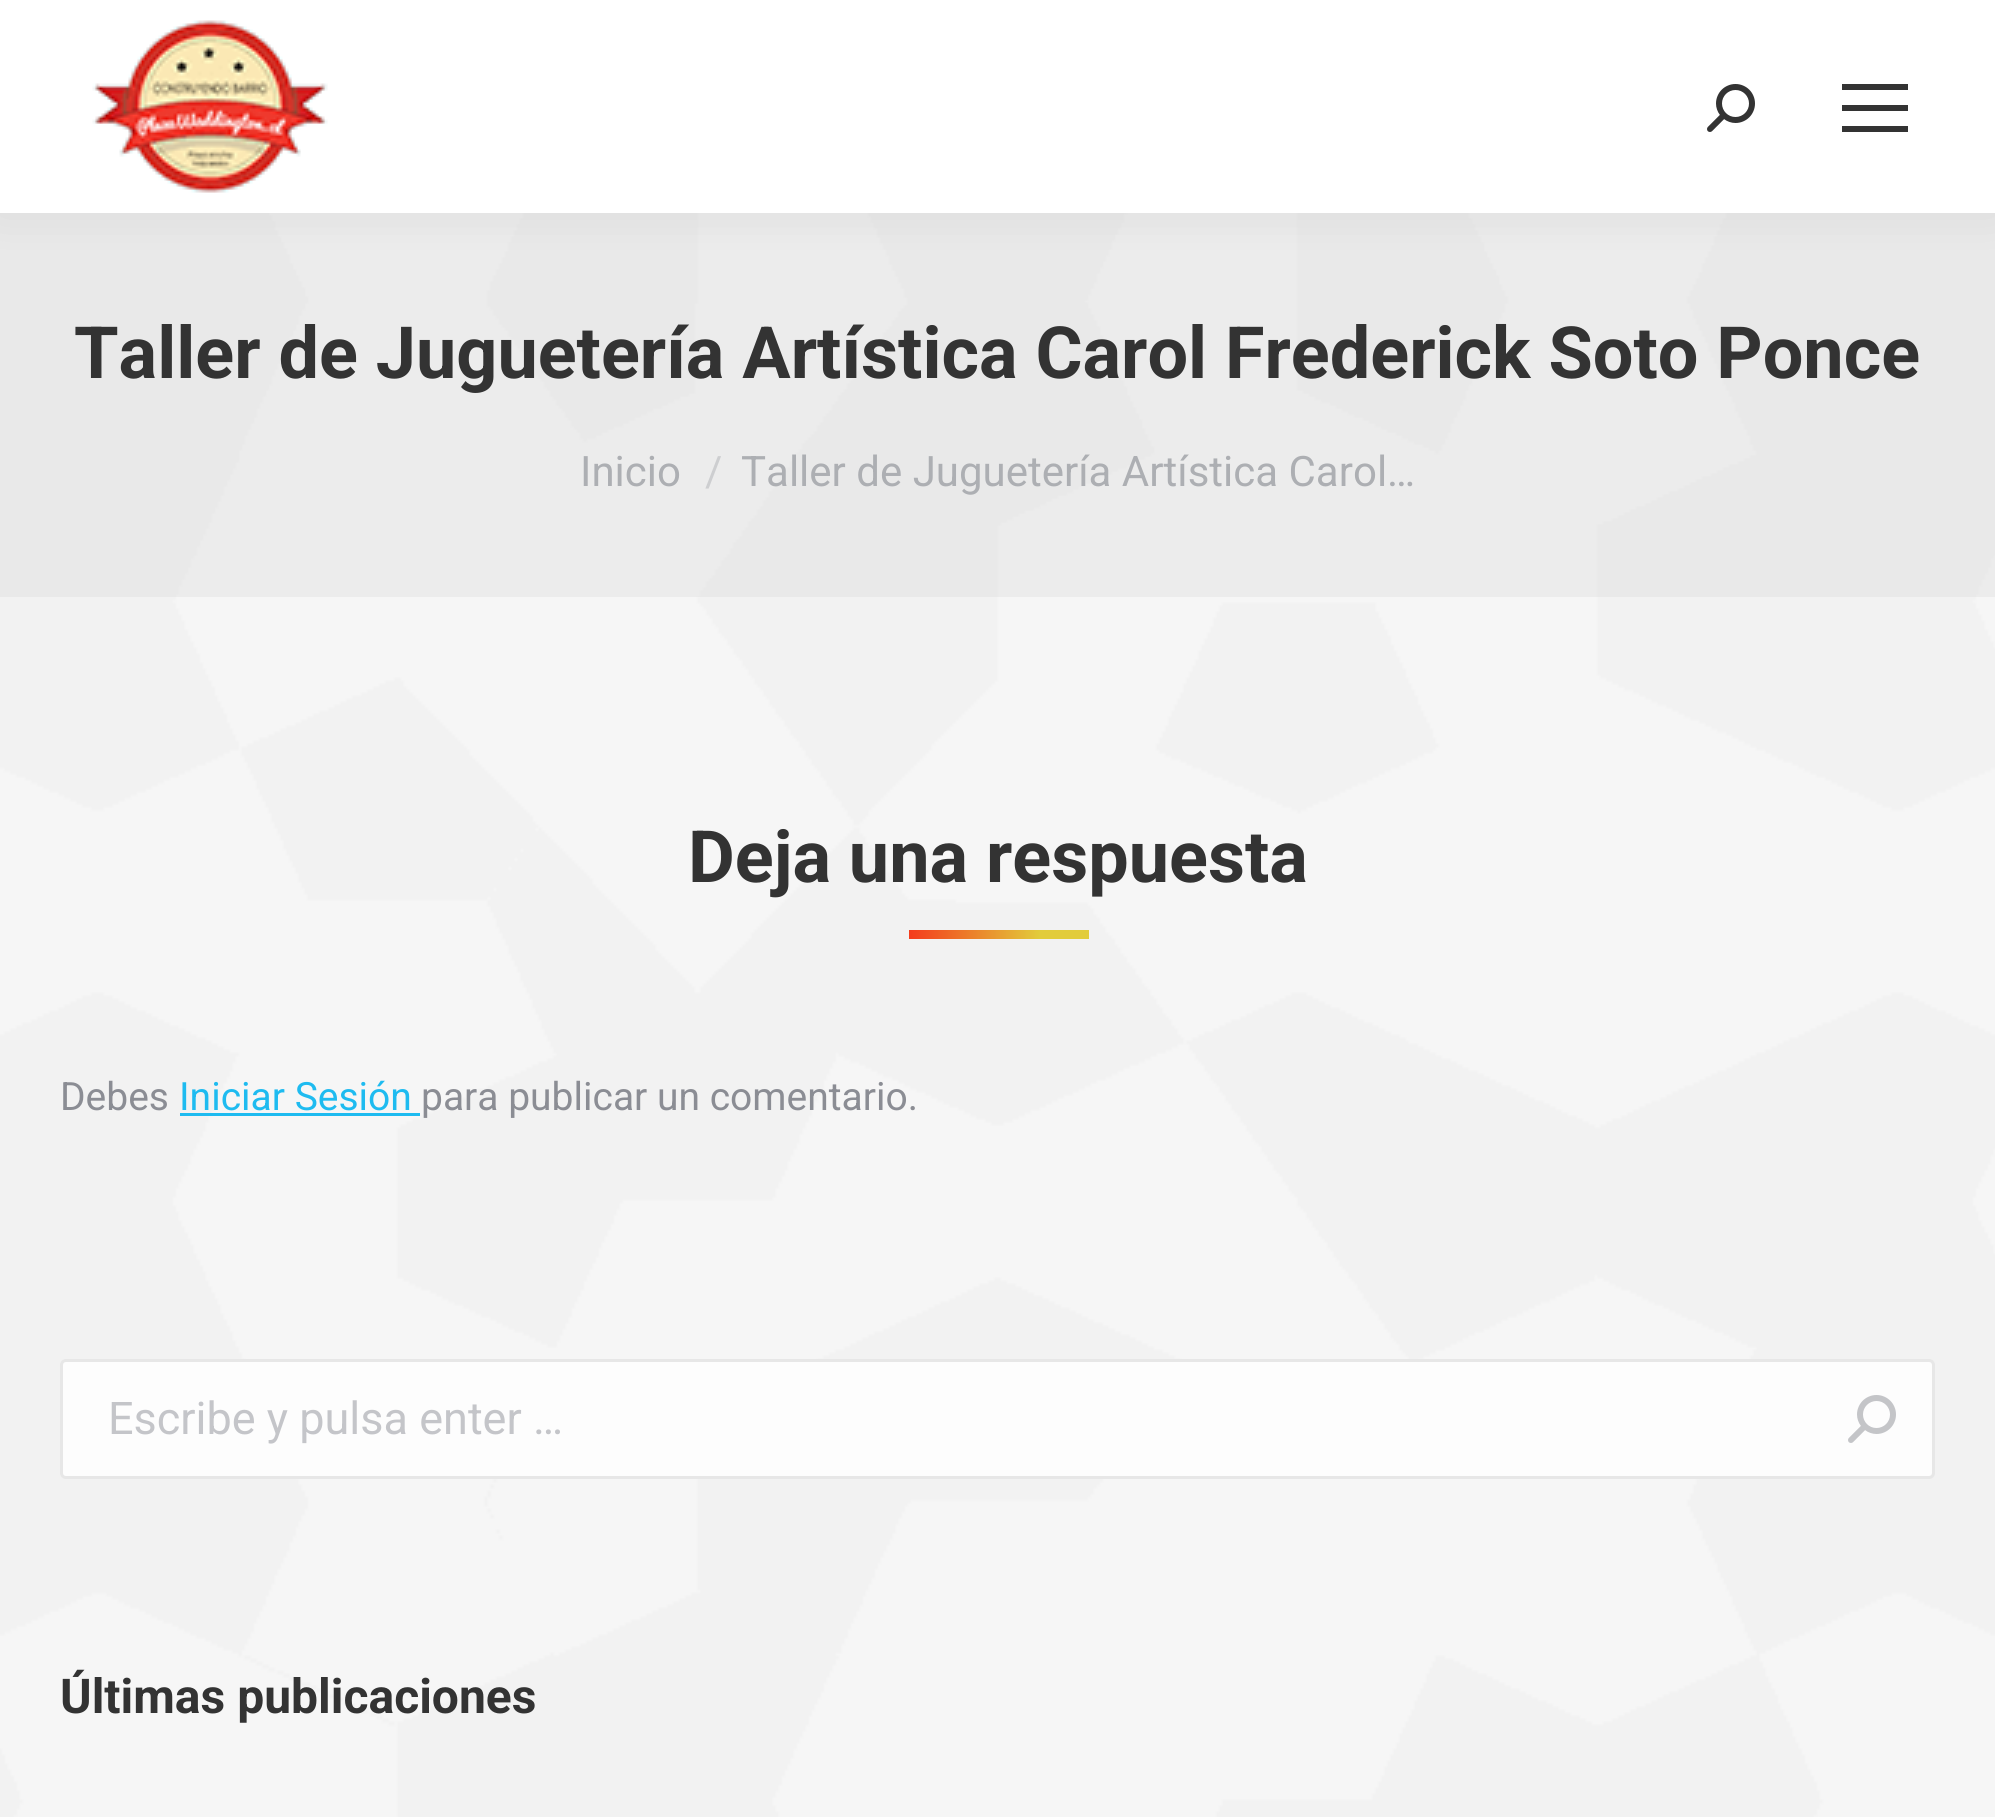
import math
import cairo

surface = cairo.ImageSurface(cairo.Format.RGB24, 1995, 1817)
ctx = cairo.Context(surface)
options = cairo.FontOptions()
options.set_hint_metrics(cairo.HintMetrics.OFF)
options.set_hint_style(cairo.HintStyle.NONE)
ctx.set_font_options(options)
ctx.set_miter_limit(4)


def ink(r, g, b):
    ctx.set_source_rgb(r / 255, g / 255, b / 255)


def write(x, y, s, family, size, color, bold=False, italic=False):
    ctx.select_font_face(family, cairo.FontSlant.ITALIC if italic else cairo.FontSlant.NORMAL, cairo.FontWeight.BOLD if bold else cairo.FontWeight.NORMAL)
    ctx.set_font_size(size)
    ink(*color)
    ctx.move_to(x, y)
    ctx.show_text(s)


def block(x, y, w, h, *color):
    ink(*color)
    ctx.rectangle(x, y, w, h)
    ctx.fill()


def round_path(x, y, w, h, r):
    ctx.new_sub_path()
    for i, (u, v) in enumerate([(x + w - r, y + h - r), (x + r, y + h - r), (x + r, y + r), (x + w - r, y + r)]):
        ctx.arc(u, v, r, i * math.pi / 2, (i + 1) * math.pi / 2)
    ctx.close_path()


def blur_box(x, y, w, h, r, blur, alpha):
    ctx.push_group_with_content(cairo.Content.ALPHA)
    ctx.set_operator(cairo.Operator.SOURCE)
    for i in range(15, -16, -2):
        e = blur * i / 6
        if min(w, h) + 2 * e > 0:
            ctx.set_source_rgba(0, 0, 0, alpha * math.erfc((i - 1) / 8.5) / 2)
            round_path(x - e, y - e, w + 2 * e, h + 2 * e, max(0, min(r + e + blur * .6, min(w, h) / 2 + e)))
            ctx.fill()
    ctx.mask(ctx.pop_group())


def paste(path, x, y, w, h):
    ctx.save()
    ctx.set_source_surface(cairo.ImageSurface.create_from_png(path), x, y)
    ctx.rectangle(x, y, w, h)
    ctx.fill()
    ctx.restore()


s1 = dict(family="Roboto", size=72, color=(51, 51, 51), bold=True)
s2 = dict(family="Roboto", size=42, color=(173, 175, 179))
s3 = dict(family="Roboto", size=42, color=(205, 206, 208))
s4 = dict(family="Roboto", size=39, color=(139, 141, 148))
s5 = dict(family="Roboto", size=39, color=(30, 187, 240))
s6 = dict(family="Roboto", size=45, color=(196, 197, 201))
s7 = dict(family="Roboto", size=48, color=(51, 51, 51), bold=True)

ink(255, 255, 255)
ctx.paint()
paste("pic1.png", 0, 213, 1995, 1604)
ctx.set_source_rgba(0, 0, 0, 0.04)
ctx.rectangle(0, 213, 1995, 384)
ctx.fill()
ink(0, 0, 0)
blur_box(-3, -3, 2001, 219, 0, 22.5, 0.07)
block(0, 0, 1995, 213, 255, 255, 255)
paste("pic2.png", 92, 20, 236, 173)
paste("pic3.png", 1707, 84, 48, 48)
block(1842, 84, 66, 6, 51, 51, 51)
block(1842, 105, 66, 6, 51, 51, 51)
block(1842, 126, 66, 6, 51, 51, 51)
write(74, 378, "Taller de Juguetería Artística Carol Frederick Soto Ponce", **s1)
write(580, 486, "Inicio", **s2)
write(705, 486, "/", **s3)
write(741, 486, "Taller de Juguetería Artística Carol…", **s2)
write(688, 882, "Deja una respuesta", **s1)
gradient = cairo.LinearGradient(909, 935, 1089, 935)
gradient.add_color_stop_rgba(0.01, 0.957, 0.239, 0.114, 1)
gradient.add_color_stop_rgba(0.73, 0.886, 0.8, 0.231, 1)
ctx.set_source(gradient)
ctx.rectangle(909, 930, 180, 9)
ctx.fill()
write(60, 1110, "Debes", **s4)
write(179, 1110, "Iniciar Sesión", **s5)
block(180, 1113, 240, 3, 30, 187, 240)
write(421, 1110, "para publicar un comentario.", **s4)
ink(253, 253, 253)
round_path(61.5, 1360.5, 1872, 117, 4.5)
ctx.fill_preserve()
ink(231, 231, 231)
ctx.set_line_width(3)
ctx.stroke()
write(108, 1434, "Escribe y pulsa enter …", **s6)
paste("pic4.png", 1848, 1395, 48, 48)
write(60, 1713, "Últimas publicaciones", **s7)
surface.write_to_png("screenshot.png")
